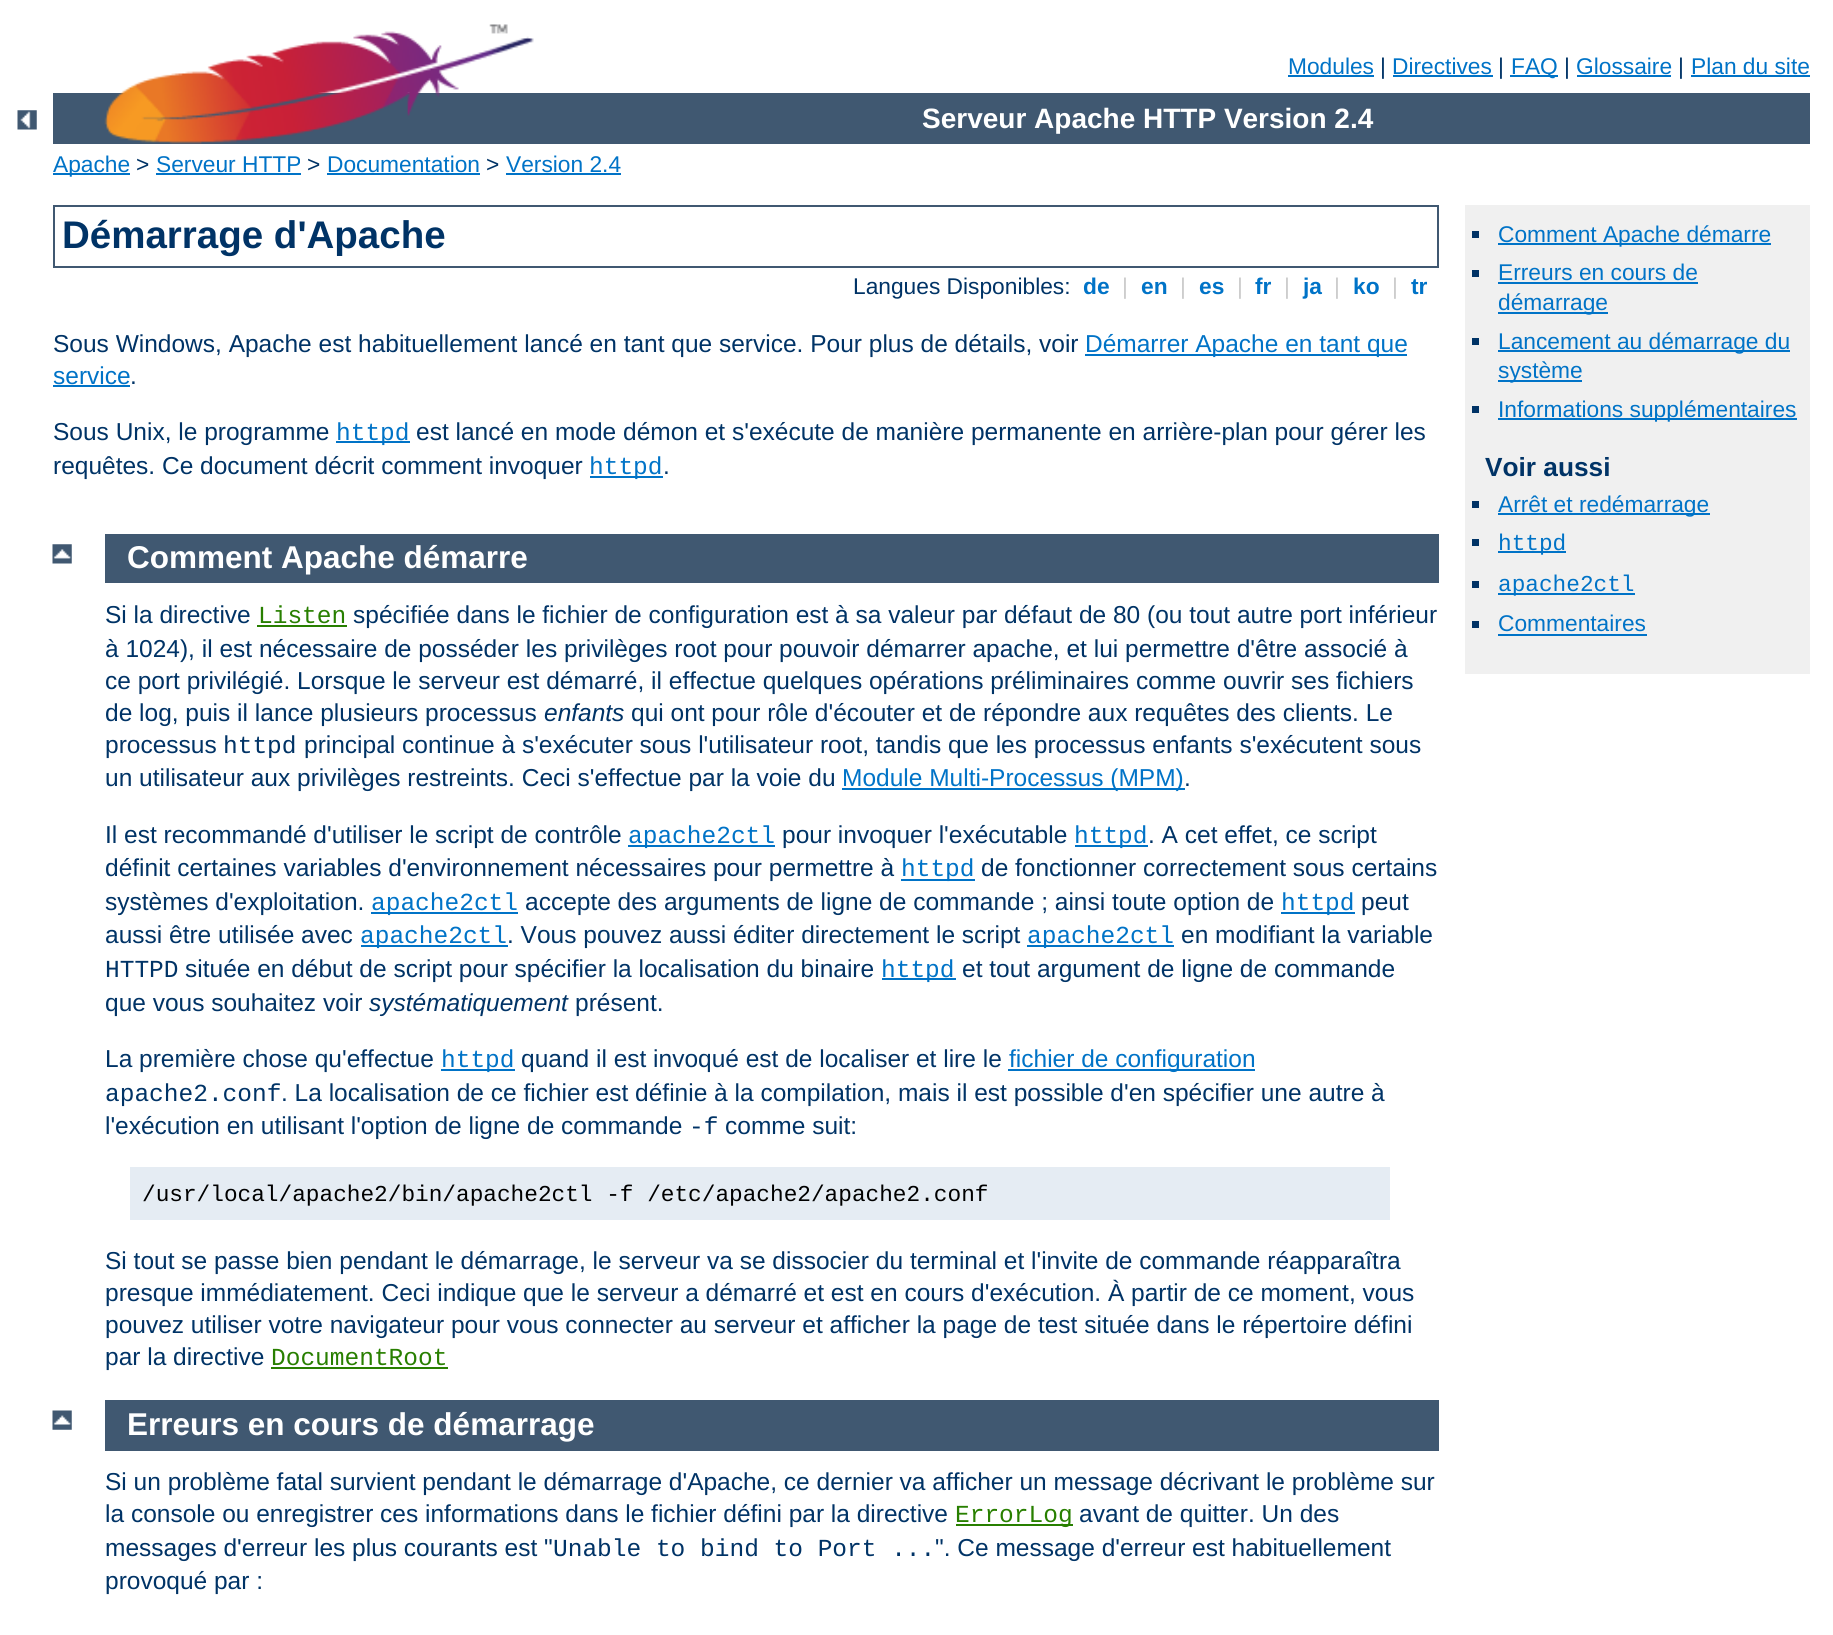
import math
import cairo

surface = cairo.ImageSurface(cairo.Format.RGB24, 1833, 1635)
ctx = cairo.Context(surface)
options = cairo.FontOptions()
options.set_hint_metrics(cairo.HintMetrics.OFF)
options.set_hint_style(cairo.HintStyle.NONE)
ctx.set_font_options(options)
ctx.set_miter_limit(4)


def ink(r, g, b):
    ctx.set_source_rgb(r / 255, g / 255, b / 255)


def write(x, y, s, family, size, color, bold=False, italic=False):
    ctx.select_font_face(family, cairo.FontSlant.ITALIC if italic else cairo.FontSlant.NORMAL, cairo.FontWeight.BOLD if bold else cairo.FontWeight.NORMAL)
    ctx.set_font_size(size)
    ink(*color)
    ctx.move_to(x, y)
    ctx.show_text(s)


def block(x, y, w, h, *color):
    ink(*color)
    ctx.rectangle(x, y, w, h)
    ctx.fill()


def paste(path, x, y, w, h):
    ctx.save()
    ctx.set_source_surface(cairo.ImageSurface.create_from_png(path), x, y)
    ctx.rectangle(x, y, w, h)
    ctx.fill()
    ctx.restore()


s1 = dict(family="Liberation Sans", size=22.75, color=(0, 115, 199))
s2 = dict(family="Liberation Sans", size=22.75, color=(0, 51, 102))
s3 = dict(family="Liberation Sans", size=28, color=(255, 255, 255), bold=True)
s4 = dict(family="Liberation Sans", size=38.5, color=(0, 51, 102), bold=True)
s5 = dict(family="Liberation Sans", size=22.75, color=(0, 115, 199), bold=True)
s6 = dict(family="Liberation Sans", size=22.75, color=(204, 204, 204))
s7 = dict(family="Liberation Sans", size=24.5, color=(0, 51, 102))
s8 = dict(family="Liberation Sans", size=24.5, color=(0, 115, 199))
s9 = dict(family="Liberation Mono", size=24.5, color=(0, 115, 199))
s10 = dict(family="Liberation Sans", size=26.25, color=(0, 51, 102), bold=True)
s11 = dict(family="Liberation Mono", size=22.75, color=(0, 115, 199))
s12 = dict(family="Liberation Sans", size=31.5, color=(255, 255, 255), bold=True)
s13 = dict(family="Liberation Mono", size=24.5, color=(40, 127, 0))
s14 = dict(family="Liberation Sans", size=24.5, color=(0, 51, 102), italic=True)
s15 = dict(family="Liberation Mono", size=24.5, color=(0, 51, 102))
s16 = dict(family="Liberation Mono", size=22.75, color=(0, 0, 0))

ink(255, 255, 255)
ctx.paint()
paste("pic1.png", 17, 110, 20, 20)
block(53, 93, 1757, 51, 64, 88, 113)
paste("pic2.png", 104, 24, 430, 120)
write(1288, 74, "Modules", **s1)
block(1288, 75, 86, 2, 0, 115, 199)
write(1380, 74, "|", **s2)
write(1392, 74, "Directives", **s1)
block(1393, 75, 100, 2, 0, 115, 199)
write(1498, 74, "|", **s2)
block(1510, 75, 48, 2, 0, 115, 199)
write(1511, 74, "FAQ", **s1)
write(1564, 74, "|", **s2)
write(1576, 74, "Glossaire", **s1)
block(1577, 75, 94, 2, 0, 115, 199)
write(1678, 74, "|", **s2)
write(1691, 74, "Plan du site", **s1)
block(1691, 75, 119, 2, 0, 115, 199)
write(922, 128, "Serveur Apache HTTP Version 2.4", **s3)
block(53, 173, 77, 2, 0, 115, 199)
write(53, 172, "Apache", **s1)
write(136, 172, ">", **s2)
write(156, 172, "Serveur HTTP", **s1)
block(156, 173, 145, 2, 0, 115, 199)
write(307, 172, ">", **s2)
write(327, 172, "Documentation", **s1)
block(327, 173, 153, 2, 0, 115, 199)
write(486, 172, ">", **s2)
write(506, 172, "Version 2.4", **s1)
block(506, 173, 115, 2, 0, 115, 199)
ctx.rectangle(54, 206, 1384, 61)
ink(64, 88, 113)
ctx.stroke()
write(62, 248, "Démarrage d'Apache", **s4)
write(853, 294, "Langues Disponibles:", **s2)
write(1083, 294, "de", **s5)
write(1122, 294, "|", **s6)
write(1141, 294, "en", **s5)
write(1180, 294, "|", **s6)
write(1199, 294, "es", **s5)
write(1237, 294, "|", **s6)
write(1255, 294, "fr", **s5)
write(1284, 294, "|", **s6)
write(1303, 294, "ja", **s5)
write(1334, 294, "|", **s6)
write(1353, 294, "ko", **s5)
write(1392, 294, "|", **s6)
write(1411, 294, "tr", **s5)
write(53, 352, "Sous Windows, Apache est habituellement lancé en tant que service. Pour plus de détails, voir", **s7)
block(1085, 354, 322, 2, 0, 115, 199)
write(1085, 352, "Démarrer Apache en tant que", **s8)
write(53, 384, "service", **s8)
block(53, 385, 77, 2, 0, 115, 199)
write(130, 384, ".", **s7)
write(53, 440, "Sous Unix, le programme", **s7)
block(336, 441, 74, 2, 0, 115, 199)
write(336, 440, "httpd", **s9)
write(416, 440, "est lancé en mode démon et s'exécute de manière permanente en arrière-plan pour gérer les", **s7)
write(53, 474, "requêtes. Ce document décrit comment invoquer", **s7)
block(590, 476, 73, 2, 0, 115, 199)
write(589, 474, "httpd", **s9)
write(663, 474, ".", **s7)
block(1465, 205, 345, 469, 240, 240, 240)
block(1472, 231, 7, 7, 0, 51, 102)
block(1498, 243, 273, 2, 0, 115, 199)
write(1498, 242, "Comment Apache démarre", **s1)
block(1472, 270, 7, 7, 0, 51, 102)
write(1498, 280, "Erreurs en cours de", **s1)
block(1498, 282, 200, 2, 0, 115, 199)
block(1498, 312, 110, 2, 0, 115, 199)
write(1498, 310, "démarrage", **s1)
block(1472, 338, 7, 7, 0, 51, 102)
block(1498, 350, 292, 2, 0, 115, 199)
write(1498, 349, "Lancement au démarrage du", **s1)
block(1498, 380, 84, 2, 0, 115, 199)
write(1498, 378, "système", **s1)
block(1472, 406, 7, 7, 0, 51, 102)
block(1498, 418, 299, 2, 0, 115, 199)
write(1498, 417, "Informations supplémentaires", **s1)
write(1485, 476, "Voir aussi", **s10)
block(1472, 501, 7, 7, 0, 51, 102)
block(1498, 513, 212, 2, 0, 115, 199)
write(1498, 512, "Arrêt et redémarrage", **s1)
block(1472, 539, 7, 7, 0, 51, 102)
block(1498, 551, 68, 2, 0, 115, 199)
write(1498, 550, "httpd", **s11)
block(1472, 581, 7, 7, 0, 51, 102)
block(1498, 593, 137, 2, 0, 115, 199)
write(1498, 591, "apache2ctl", **s11)
block(1472, 621, 7, 7, 0, 51, 102)
write(1498, 631, "Commentaires", **s1)
block(1498, 634, 149, 2, 0, 115, 199)
paste("pic3.png", 52, 544, 20, 20)
block(105, 534, 1334, 49, 64, 88, 113)
write(127, 568, "Comment Apache démarre", **s12)
write(105, 623, "Si la directive", **s7)
write(258, 623, "Listen", **s13)
block(257, 625, 90, 2, 40, 127, 0)
write(353, 623, "spécifiée dans le fichier de configuration est à sa valeur par défaut de 80 (ou tout autre port inférieur", **s7)
write(105, 657, "à 1024), il est nécessaire de posséder les privilèges root pour pouvoir démarrer apache, et lui permettre d'être associé à", **s7)
write(105, 689, "ce port privilégié. Lorsque le serveur est démarré, il effectue quelques opérations préliminaires comme ouvrir ses fichiers", **s7)
write(105, 721, "de log, puis il lance plusieurs processus", **s7)
write(544, 721, "enfants", **s14)
write(631, 721, "qui ont pour rôle d'écouter et de répondre aux requêtes des clients. Le", **s7)
write(105, 753, "processus", **s7)
write(223, 753, "httpd", **s15)
write(304, 753, "principal continue à s'exécuter sous l'utilisateur root, tandis que les processus enfants s'exécutent sous", **s7)
write(105, 786, "un utilisateur aux privilèges restreints. Ceci s'effectue par la voie du", **s7)
block(842, 788, 343, 2, 0, 115, 199)
write(842, 786, "Module Multi-Processus (MPM)", **s8)
write(1184, 786, ".", **s7)
write(105, 843, "Il est recommandé d'utiliser le script de contrôle", **s7)
block(628, 845, 147, 2, 0, 115, 199)
write(628, 843, "apache2ctl", **s9)
write(782, 843, "pour invoquer l'exécutable", **s7)
block(1075, 845, 73, 2, 0, 115, 199)
write(1074, 843, "httpd", **s9)
write(1148, 843, ". A cet effet, ce script", **s7)
write(105, 876, "définit certaines variables d'environnement nécessaires pour permettre à", **s7)
block(901, 879, 74, 2, 0, 115, 199)
write(901, 876, "httpd", **s9)
write(981, 876, "de fonctionner correctement sous certains", **s7)
write(105, 910, "systèmes d'exploitation.", **s7)
block(371, 912, 147, 2, 0, 115, 199)
write(371, 910, "apache2ctl", **s9)
write(525, 910, "accepte des arguments de ligne de commande ; ainsi toute option de", **s7)
block(1281, 912, 74, 2, 0, 115, 199)
write(1281, 910, "httpd", **s9)
write(1361, 910, "peut", **s7)
write(105, 943, "aussi être utilisée avec", **s7)
block(361, 945, 147, 2, 0, 115, 199)
write(360, 943, "apache2ctl", **s9)
write(507, 943, ". Vous pouvez aussi éditer directement le script", **s7)
block(1027, 945, 147, 2, 0, 115, 199)
write(1027, 943, "apache2ctl", **s9)
write(1181, 943, "en modifiant la variable", **s7)
write(105, 977, "HTTPD", **s15)
write(185, 977, "située en début de script pour spécifier la localisation du binaire", **s7)
block(882, 978, 74, 2, 0, 115, 199)
write(881, 977, "httpd", **s9)
write(962, 977, "et tout argument de ligne de commande", **s7)
write(105, 1011, "que vous souhaitez voir", **s7)
write(369, 1011, "systématiquement", **s14)
write(575, 1011, "présent.", **s7)
write(105, 1067, "La première chose qu'effectue", **s7)
block(441, 1069, 74, 2, 0, 115, 199)
write(441, 1067, "httpd", **s9)
write(521, 1067, "quand il est invoqué est de localiser et lire le", **s7)
block(1008, 1069, 247, 2, 0, 115, 199)
write(1009, 1067, "fichier de configuration", **s8)
write(105, 1101, "apache2.conf", **s15)
write(281, 1101, ". La localisation de ce fichier est définie à la compilation, mais il est possible d'en spécifier une autre à", **s7)
write(105, 1134, "l'exécution en utilisant l'option de ligne de commande", **s7)
write(689, 1134, "-f", **s15)
write(725, 1134, "comme suit:", **s7)
block(130, 1167, 1260, 53, 229, 236, 243)
write(142, 1201, "/usr/local/apache2/bin/apache2ctl -f /etc/apache2/apache2.conf", **s16)
write(105, 1269, "Si tout se passe bien pendant le démarrage, le serveur va se dissocier du terminal et l'invite de commande réapparaîtra", **s7)
write(105, 1301, "presque immédiatement. Ceci indique que le serveur a démarré et est en cours d'exécution. À partir de ce moment, vous", **s7)
write(105, 1333, "pouvez utiliser votre navigateur pour vous connecter au serveur et afficher la page de test située dans le répertoire défini", **s7)
write(105, 1365, "par la directive", **s7)
write(271, 1365, "DocumentRoot", **s13)
block(271, 1367, 177, 2, 40, 127, 0)
paste("pic4.png", 52, 1410, 20, 20)
block(105, 1400, 1334, 51, 64, 88, 113)
write(127, 1435, "Erreurs en cours de démarrage", **s12)
write(105, 1490, "Si un problème fatal survient pendant le démarrage d'Apache, ce dernier va afficher un message décrivant le problème sur", **s7)
write(105, 1522, "la console ou enregistrer ces informations dans le fichier défini par la directive", **s7)
block(956, 1524, 117, 2, 40, 127, 0)
write(955, 1522, "ErrorLog", **s13)
write(1079, 1522, "avant de quitter. Un des", **s7)
write(105, 1556, "messages d'erreur les plus courants est \"", **s7)
write(553, 1556, "Unable to bind to Port ...", **s15)
write(935, 1556, "\". Ce message d'erreur est habituellement", **s7)
write(105, 1589, "provoqué par :", **s7)
surface.write_to_png("screenshot.png")
